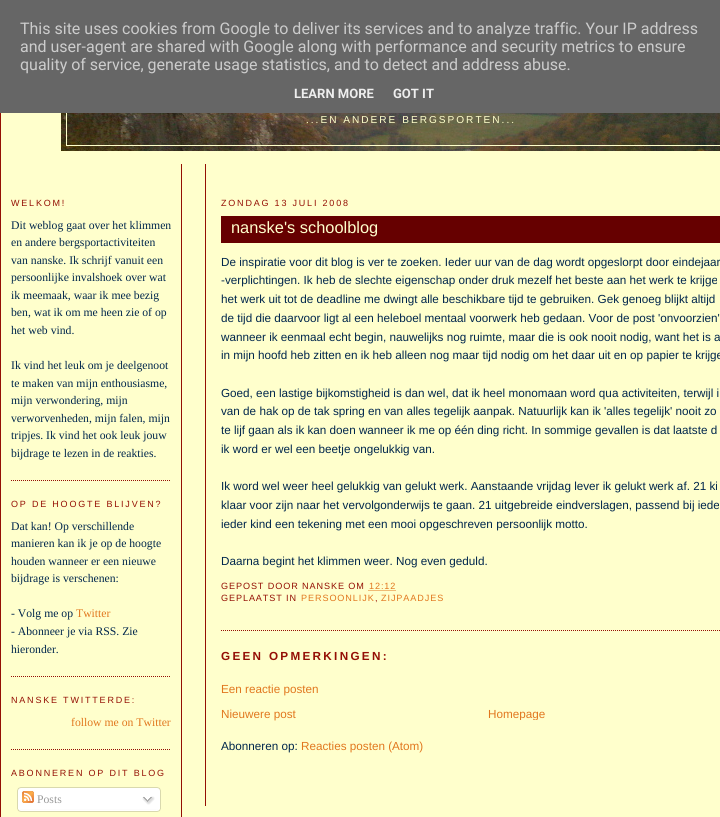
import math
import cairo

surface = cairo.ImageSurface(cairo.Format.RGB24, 720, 817)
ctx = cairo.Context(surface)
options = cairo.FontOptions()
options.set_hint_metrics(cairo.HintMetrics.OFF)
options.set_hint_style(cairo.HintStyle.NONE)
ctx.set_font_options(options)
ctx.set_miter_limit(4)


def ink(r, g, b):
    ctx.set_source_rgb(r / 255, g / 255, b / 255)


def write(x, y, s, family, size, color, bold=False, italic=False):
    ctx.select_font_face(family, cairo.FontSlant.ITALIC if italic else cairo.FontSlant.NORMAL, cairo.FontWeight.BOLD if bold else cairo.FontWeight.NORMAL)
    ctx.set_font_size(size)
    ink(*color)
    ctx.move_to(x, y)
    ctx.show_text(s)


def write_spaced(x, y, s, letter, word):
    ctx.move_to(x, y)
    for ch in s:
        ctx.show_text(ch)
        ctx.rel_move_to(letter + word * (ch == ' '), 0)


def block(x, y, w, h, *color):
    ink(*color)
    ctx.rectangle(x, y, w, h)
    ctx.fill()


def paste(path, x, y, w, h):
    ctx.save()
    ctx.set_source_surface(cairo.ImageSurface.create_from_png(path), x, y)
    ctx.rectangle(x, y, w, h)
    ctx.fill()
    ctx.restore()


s1 = dict(family="Roboto", size=16, color=(204, 204, 204))
s2 = dict(family="Roboto", size=13, color=(238, 238, 238), bold=True)
s3 = dict(family="Liberation Serif", size=11.7, color=(0, 38, 76))
s4 = dict(family="Liberation Serif", size=11.7, color=(225, 119, 30))
s5 = dict(family="Liberation Serif", size=11.7, color=(153, 153, 153))
s6 = dict(family="Liberation Sans", size=16.4, color=(255, 255, 204))
s7 = dict(family="Liberation Sans", size=11.7, color=(0, 38, 76))
s8 = dict(family="Liberation Sans", size=11.7, color=(225, 119, 30))

ink(255, 255, 204)
ctx.paint()
ctx.rectangle(0.5, 30.5, 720, 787)
ink(148, 15, 4)
ctx.set_line_width(1)
ctx.stroke()
paste("pic1.png", 61, 113, 659, 38)
ctx.rectangle(66.5, 49.5, 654, 96)
ink(255, 255, 204)
ctx.stroke()
block(0, 0, 720, 113, 102, 102, 102)
write(20, 34, "This site uses cookies from Google to deliver its services and to analyze traffic. Your IP address", **s1)
write(20, 52, "and user-agent are shared with Google along with performance and security metrics to ensure", **s1)
write(20, 70, "quality of service, generate usage statistics, and to detect and address abuse.", **s1)
write(294, 98, "LEARN MORE", **s2)
write(393, 98, "GOT IT", **s2)
ctx.select_font_face("Liberation Sans")
ctx.set_font_size(10.1)
ink(255, 255, 204)
write_spaced(306, 123, "...EN ANDERE BERGSPORTEN...", 2, 0)
block(181, 164, 1, 653, 148, 15, 4)
ctx.new_path()
ctx.move_to(11, 480.5)
ctx.line_to(171, 480.5)
ctx.set_dash([1, 1])
ctx.stroke()
ctx.set_font_size(9)
write_spaced(11, 206, "WELKOM!", 1.8, 0)
write(11, 229, "Dit weblog gaat over het klimmen", **s3)
write(11, 246, "en andere bergsportactiviteiten", **s3)
write(11, 264, "van nanske. Ik schrijf vanuit een", **s3)
write(11, 281, "persoonlijke invalshoek over wat", **s3)
write(11, 299, "ik meemaak, waar ik mee bezig", **s3)
write(11, 316, "ben, wat ik om me heen zie of op", **s3)
write(11, 334, "het web vind.", **s3)
write(11, 369, "Ik vind het leuk om je deelgenoot", **s3)
write(11, 387, "te maken van mijn enthousiasme,", **s3)
write(11, 404, "mijn verwondering, mijn", **s3)
write(11, 422, "verworvenheden, mijn falen, mijn", **s3)
write(11, 439, "tripjes. Ik vind het ook leuk jouw", **s3)
write(11, 457, "bijdrage te lezen in de reakties.", **s3)
ctx.new_path()
ctx.move_to(11, 676.5)
ctx.line_to(171, 676.5)
ink(148, 15, 4)
ctx.stroke()
ctx.select_font_face("Liberation Sans")
ctx.set_font_size(9)
write_spaced(11, 507, "OP DE HOOGTE BLIJVEN?", 1.8, 0)
write(11, 530, "Dat kan! Op verschillende", **s3)
write(11, 547, "manieren kan ik je op de hoogte", **s3)
write(11, 565, "houden wanneer er een nieuwe", **s3)
write(11, 582, "bijdrage is verschenen:", **s3)
write(11, 617, "- Volg me op", **s3)
write(76, 617, "Twitter", **s4)
write(11, 635, "- Abonneer je via RSS. Zie", **s3)
write(11, 653, "hieronder.", **s3)
ctx.new_path()
ctx.move_to(11, 749.5)
ctx.line_to(171, 749.5)
ink(148, 15, 4)
ctx.stroke()
ctx.select_font_face("Liberation Sans")
ctx.set_font_size(9)
write_spaced(11, 703, "NANSKE TWITTERDE:", 1.8, 0)
write(71, 726, "follow me on Twitter", **s4)
ctx.select_font_face("Liberation Sans")
ctx.set_font_size(9)
ink(148, 15, 4)
write_spaced(11, 776, "ABONNEREN OP DIT BLOG", 1.8, 0)
paste("pic2.png", 17, 787, 144, 22)
paste("pic3.png", 22, 791, 12, 12)
write(37, 803, "Posts", **s5)
paste("pic4.png", 142, 796, 13, 9)
paste("pic5.png", 17, 809, 144, 3)
block(205, 164, 1, 642, 148, 15, 4)
ctx.select_font_face("Liberation Sans")
ctx.set_font_size(9)
write_spaced(221, 206, "ZONDAG 13 JULI 2008", 1.8, 0)
ctx.new_path()
ctx.move_to(221, 630.5)
ctx.line_to(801, 630.5)
ctx.stroke()
block(221, 216, 499, 27, 102, 0, 0)
write(231, 233, "nanske's schoolblog", **s6)
write(221, 266, "De inspiratie voor dit blog is ver te zoeken. Ieder uur van de dag wordt opgeslorpt door eindejaar", **s7)
write(221, 284, "-verplichtingen. Ik heb de slechte eigenschap onder druk mezelf het beste aan het werk te krijge", **s7)
write(221, 303, "het werk uit tot de deadline me dwingt alle beschikbare tijd te gebruiken. Gek genoeg blijkt altijd", **s7)
write(221, 322, "de tijd die daarvoor ligt al een heleboel mentaal voorwerk heb gedaan. Voor de post 'onvoorzien'", **s7)
write(221, 341, "wanneer ik eenmaal echt begin, nauwelijks nog ruimte, maar die is ook nooit nodig, want het is a", **s7)
write(221, 359, "in mijn hoofd heb zitten en ik heb alleen nog maar tijd nodig om het daar uit en op papier te krijge", **s7)
write(221, 397, "Goed, een lastige bijkomstigheid is dan wel, dat ik heel monomaan word qua activiteiten, terwijl i", **s7)
write(221, 415, "van de hak op de tak spring en van alles tegelijk aanpak. Natuurlijk kan ik 'alles tegelijk' nooit zo", **s7)
write(221, 434, "te lijf gaan als ik kan doen wanneer ik me op één ding richt. In sommige gevallen is dat laatste d", **s7)
write(221, 453, "ik word er wel een beetje ongelukkig van.", **s7)
write(221, 490, "Ik word wel weer heel gelukkig van gelukt werk. Aanstaande vrijdag lever ik gelukt werk af. 21 ki", **s7)
write(221, 509, "klaar voor zijn naar het vervolgonderwijs te gaan. 21 uitgebreide eindverslagen, passend bij iede", **s7)
write(221, 528, "ieder kind een tekening met een mooi opgeschreven persoonlijk motto.", **s7)
write(221, 565, "Daarna begint het klimmen weer. Nog even geduld.", **s7)
ctx.set_font_size(9.1)
ink(148, 15, 4)
write_spaced(221, 589, "GEPOST DOOR NANSKE OM", 0.9, 0)
ink(225, 119, 30)
write_spaced(369, 589, "12:12", 0.9, 0)
ctx.new_path()
ctx.move_to(368.5, 590.5)
ctx.line_to(396, 590.5)
ctx.stroke()
ink(148, 15, 4)
write_spaced(221, 601, "GEPLAATST IN", 0.9, 0)
ink(225, 119, 30)
write_spaced(301, 601, "PERSOONLIJK", 0.9, 0)
ink(148, 15, 4)
write_spaced(375, 601, ",", 0.9, 0)
ink(225, 119, 30)
write_spaced(381, 601, "ZIJPAADJES", 0.9, 0)
ctx.select_font_face("Liberation Sans", cairo.FontSlant.NORMAL, cairo.FontWeight.BOLD)
ctx.set_font_size(11.7)
ink(148, 15, 4)
write_spaced(221, 660, "GEEN OPMERKINGEN:", 2.3, 0)
write(221, 693, "Een reactie posten", **s8)
write(221, 718, "Nieuwere post", **s8)
ctx.save()
ctx.rectangle(221, 707, 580, 13)
ctx.clip()
write(488, 718, "Homepage", **s8)
ctx.restore()
write(221, 750, "Abonneren op:", **s7)
write(301, 750, "Reacties posten (Atom)", **s8)
surface.write_to_png("screenshot.png")
